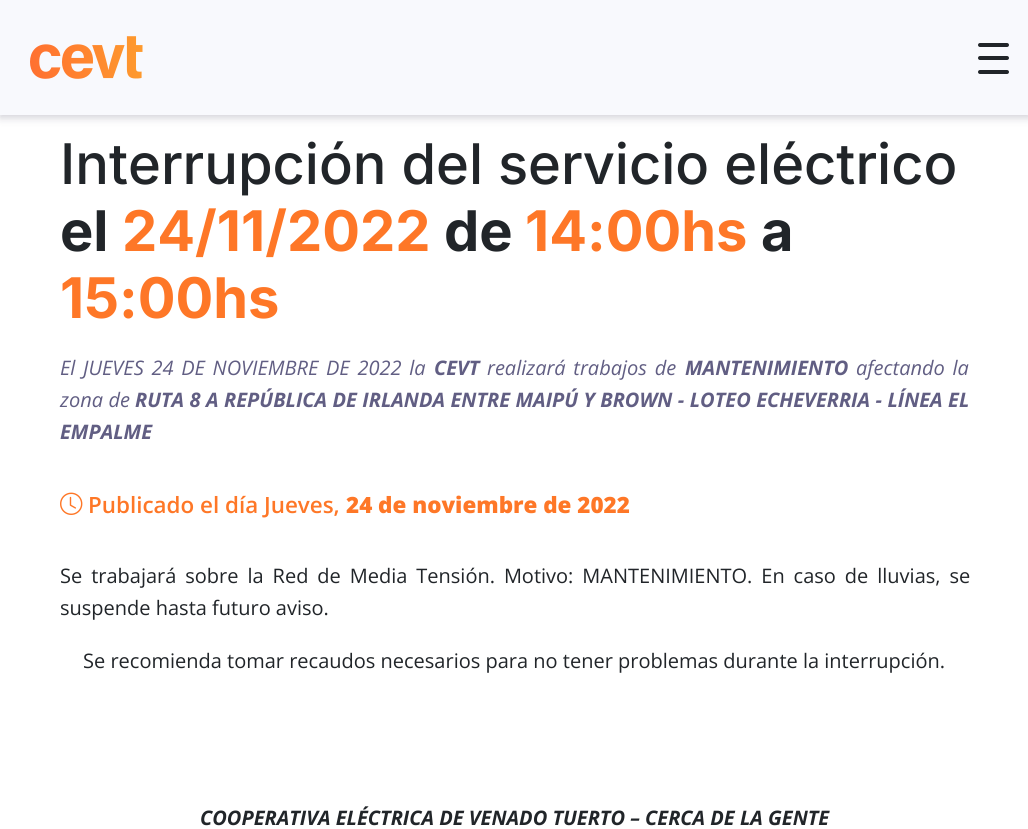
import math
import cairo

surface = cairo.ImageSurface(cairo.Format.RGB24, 1028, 829)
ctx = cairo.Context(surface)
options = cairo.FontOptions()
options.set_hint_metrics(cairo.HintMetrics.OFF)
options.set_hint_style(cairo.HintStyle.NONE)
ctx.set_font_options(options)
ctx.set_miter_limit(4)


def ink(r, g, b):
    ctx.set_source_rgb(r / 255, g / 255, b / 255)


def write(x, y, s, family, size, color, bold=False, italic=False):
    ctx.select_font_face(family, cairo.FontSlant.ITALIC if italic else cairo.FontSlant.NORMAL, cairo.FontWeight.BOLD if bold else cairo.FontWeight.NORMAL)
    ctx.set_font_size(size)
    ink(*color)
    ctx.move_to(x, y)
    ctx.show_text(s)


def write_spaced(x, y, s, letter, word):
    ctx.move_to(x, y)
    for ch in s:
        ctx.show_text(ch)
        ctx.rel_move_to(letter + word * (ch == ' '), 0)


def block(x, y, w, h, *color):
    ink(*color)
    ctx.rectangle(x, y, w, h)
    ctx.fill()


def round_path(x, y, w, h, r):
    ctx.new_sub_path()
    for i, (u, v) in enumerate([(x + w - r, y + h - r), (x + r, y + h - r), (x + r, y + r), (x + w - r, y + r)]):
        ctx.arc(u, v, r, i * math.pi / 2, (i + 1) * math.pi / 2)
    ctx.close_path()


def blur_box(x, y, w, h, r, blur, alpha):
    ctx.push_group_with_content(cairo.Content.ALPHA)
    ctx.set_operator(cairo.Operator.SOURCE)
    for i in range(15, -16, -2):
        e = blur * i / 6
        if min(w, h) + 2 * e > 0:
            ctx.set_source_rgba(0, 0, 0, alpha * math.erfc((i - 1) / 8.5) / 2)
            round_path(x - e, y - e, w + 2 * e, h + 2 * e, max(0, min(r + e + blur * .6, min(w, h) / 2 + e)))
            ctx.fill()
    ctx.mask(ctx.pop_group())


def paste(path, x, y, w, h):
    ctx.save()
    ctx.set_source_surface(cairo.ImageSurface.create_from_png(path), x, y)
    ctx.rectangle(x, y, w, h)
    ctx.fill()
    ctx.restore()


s1 = dict(family="Inter Medium", size=56, color=(33, 37, 41))
s2 = dict(family="Inter", size=56, color=(33, 37, 41), bold=True)
s3 = dict(family="Inter", size=56, color=(254, 119, 39), bold=True)
s4 = dict(family="Open Sans", size=20, color=(97, 94, 131), bold=True, italic=True)
s5 = dict(family="Open Sans SemiBold", size=22.4, color=(254, 119, 39))
s6 = dict(family="Open Sans ExtraBold", size=22.4, color=(254, 119, 39))
s7 = dict(family="Open Sans", size=20, color=(33, 37, 41))
s8 = dict(family="Open Sans", size=20, color=(33, 37, 41), bold=True, italic=True)

ink(255, 255, 255)
ctx.paint()
ink(13, 10, 44)
blur_box(0, 3, 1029, 115, 0, 4, 0.18)
block(0, 0, 1028, 115, 248, 249, 253)
paste("pic1.png", 30, 36, 113, 43)
ink(33, 37, 41)
round_path(978, 43, 31, 4, 2)
ctx.fill()
round_path(978, 56, 31, 4, 2)
ctx.fill()
round_path(978, 70, 31, 4, 2)
ctx.fill()
write(60, 184, "Interrupción del servicio eléctrico", **s1)
write(60, 251, "el", **s2)
write(122, 251, "24/11/2022", **s3)
write(444, 251, "de", **s2)
write(525, 251, "14:00hs", **s3)
write(761, 251, "a", **s2)
write(60, 318, "15:00hs", **s3)
ctx.select_font_face("Open Sans", cairo.FontSlant.ITALIC)
ctx.set_font_size(20)
ink(97, 94, 131)
write_spaced(60, 375, "El JUEVES 24 DE NOVIEMBRE DE 2022 la", 0, 2.5)
write(434, 375, "CEVT", **s4)
ctx.select_font_face("Open Sans", cairo.FontSlant.ITALIC)
write_spaced(487, 375, "realizará trabajos de", 0, 2.5)
write(685, 375, "MANTENIMIENTO", **s4)
ctx.select_font_face("Open Sans", cairo.FontSlant.ITALIC)
write_spaced(856, 375, "afectando la", 0, 2.5)
write_spaced(60, 407, "zona de", 0, 0.25)
ctx.select_font_face("Open Sans", cairo.FontSlant.ITALIC, cairo.FontWeight.BOLD)
write_spaced(135, 407, "RUTA 8 A REPÚBLICA DE IRLANDA ENTRE MAIPÚ Y BROWN - LOTEO ECHEVERRIA - LÍNEA EL", 0, 0.25)
write(60, 439, "EMPALME", **s4)
paste("pic2.png", 60, 492, 23, 23)
write(88, 513, "Publicado el día Jueves,", **s5)
write(346, 513, "24 de noviembre de 2022", **s6)
ctx.select_font_face("Open Sans")
ctx.set_font_size(20)
ink(33, 37, 41)
write_spaced(60, 583, "Se trabajará sobre la Red de Media Tensión. Motivo: MANTENIMIENTO. En caso de lluvias, se", 0, 3.75)
write(60, 615, "suspende hasta futuro aviso.", **s7)
write(83, 668, "Se recomienda tomar recaudos necesarios para no tener problemas durante la interrupción.", **s7)
write(200, 825, "COOPERATIVA ELÉCTRICA DE VENADO TUERTO – CERCA DE LA GENTE", **s8)
surface.write_to_png("screenshot.png")
